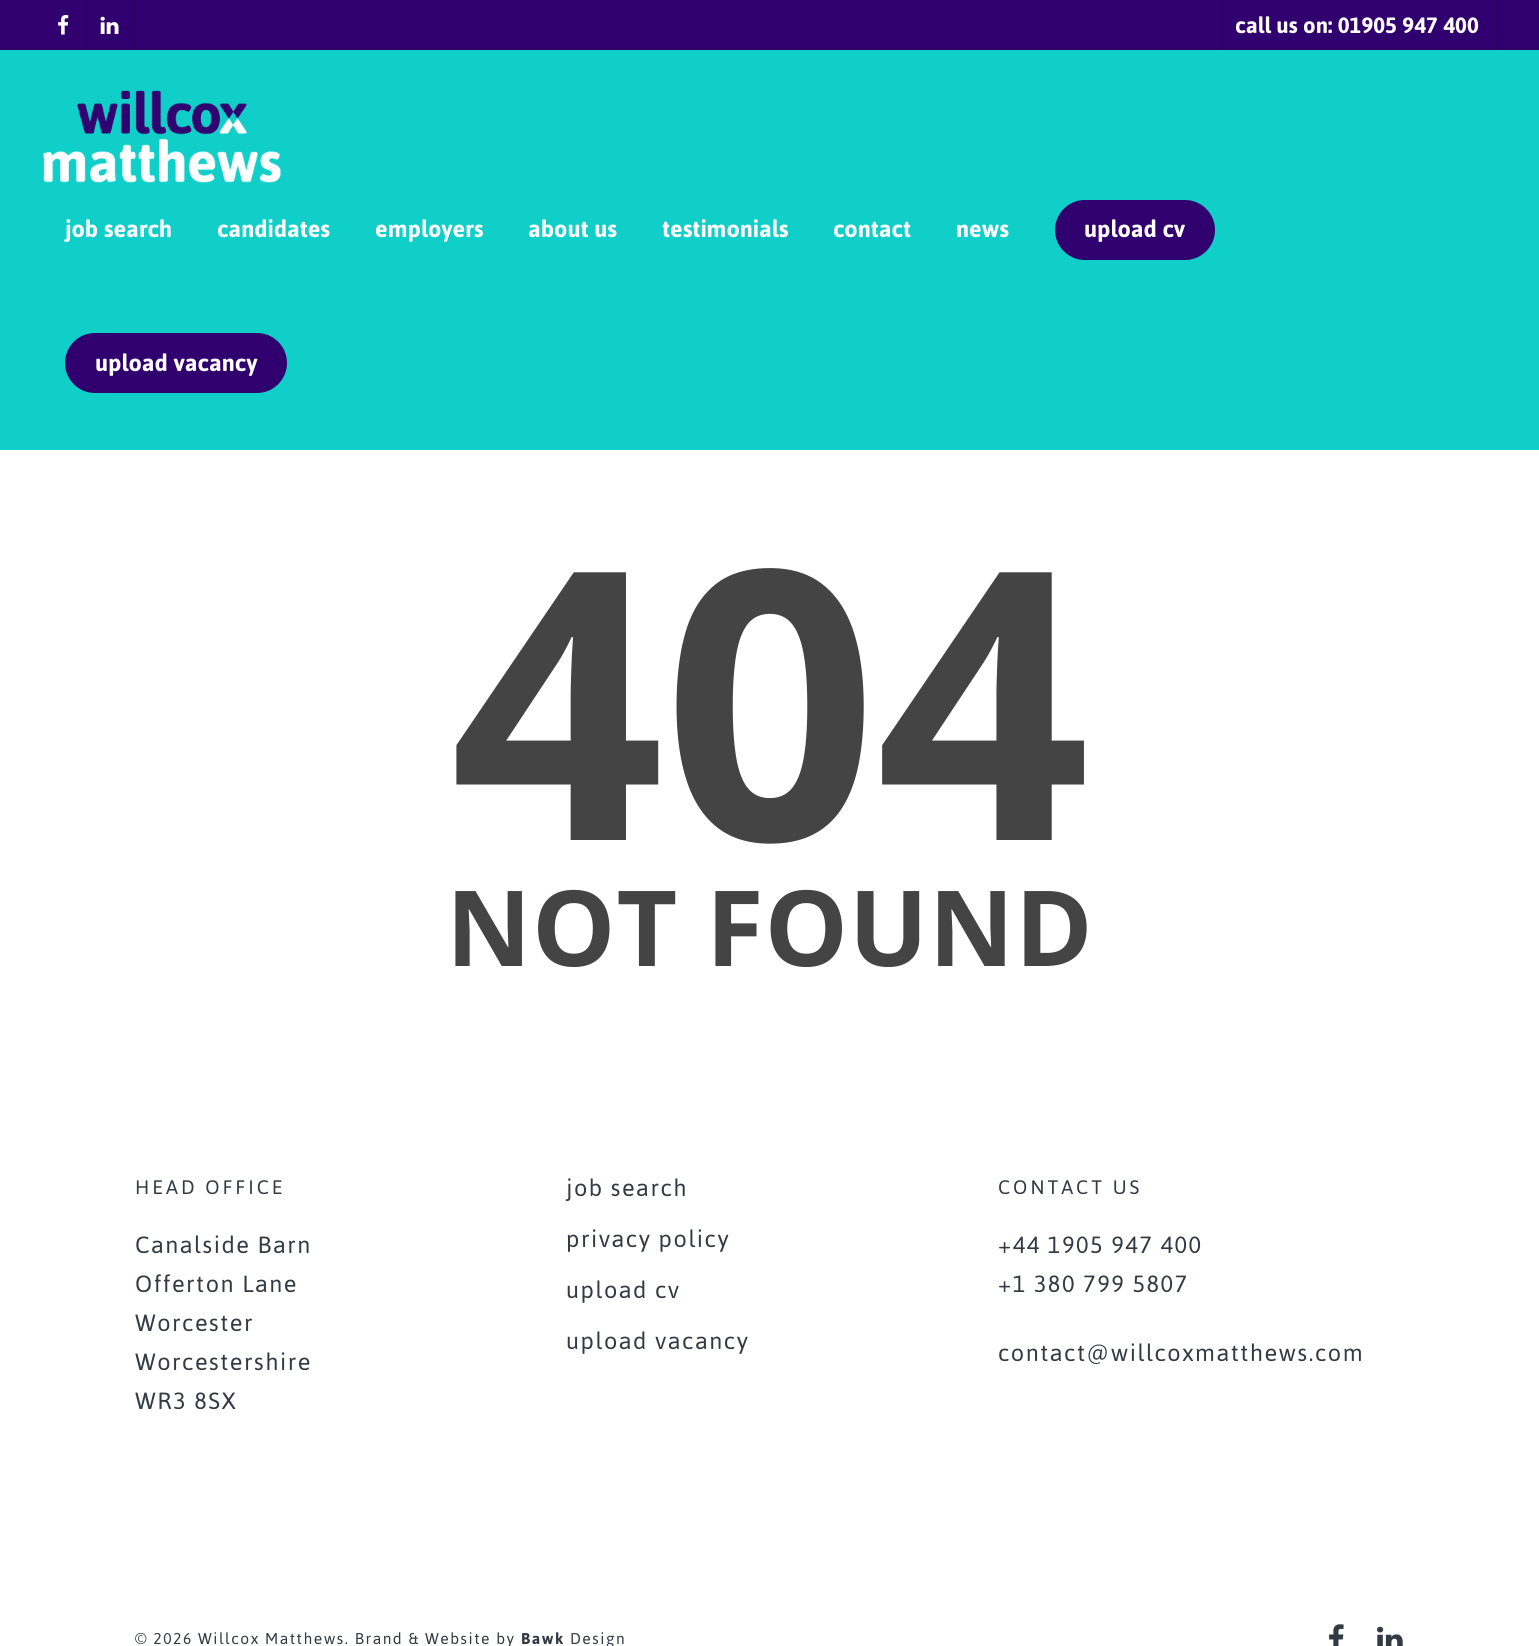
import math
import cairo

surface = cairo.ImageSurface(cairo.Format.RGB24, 1539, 1646)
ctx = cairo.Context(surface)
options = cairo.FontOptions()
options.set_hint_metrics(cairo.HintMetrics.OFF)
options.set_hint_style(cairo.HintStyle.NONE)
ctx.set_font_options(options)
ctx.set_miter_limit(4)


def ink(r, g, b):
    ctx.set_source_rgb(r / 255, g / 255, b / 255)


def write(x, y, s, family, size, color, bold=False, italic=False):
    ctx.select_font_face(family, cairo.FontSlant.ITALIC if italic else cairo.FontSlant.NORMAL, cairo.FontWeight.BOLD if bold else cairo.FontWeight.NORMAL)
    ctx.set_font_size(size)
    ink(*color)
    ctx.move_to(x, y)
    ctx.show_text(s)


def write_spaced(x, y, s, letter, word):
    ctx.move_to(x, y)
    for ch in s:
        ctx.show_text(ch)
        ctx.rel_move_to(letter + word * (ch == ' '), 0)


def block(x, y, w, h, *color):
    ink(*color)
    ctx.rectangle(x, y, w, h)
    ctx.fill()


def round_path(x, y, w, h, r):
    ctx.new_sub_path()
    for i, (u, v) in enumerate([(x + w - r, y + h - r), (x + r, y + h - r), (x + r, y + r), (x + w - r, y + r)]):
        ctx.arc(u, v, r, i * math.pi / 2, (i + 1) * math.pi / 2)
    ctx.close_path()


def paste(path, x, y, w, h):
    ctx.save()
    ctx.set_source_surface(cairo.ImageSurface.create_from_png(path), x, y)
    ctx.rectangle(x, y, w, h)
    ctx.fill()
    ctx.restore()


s1 = dict(family="Jaldi", size=25.5, color=(255, 255, 255), bold=True)
s2 = dict(family="Jaldi", size=27, color=(255, 255, 255), bold=True)

ink(255, 255, 255)
ctx.paint()
block(0, 0, 1539, 48, 49, 0, 111)
block(1220, 0, 2, 50, 44, 0, 100)
block(1496, 0, 2, 50, 44, 0, 100)
block(0, 48, 1539, 2, 44, 0, 100)
block(1220, 48, 2, 2, 40, 0, 90)
block(1496, 48, 2, 2, 40, 0, 90)
paste("pic1.png", 58, 15, 11, 20)
block(134, 0, 2, 48, 44, 0, 100)
block(84, 0, 2, 48, 44, 0, 100)
paste("pic2.png", 100, 16, 19, 18)
write(1235, 33, "call us on: 01905 947 400", **s1)
block(0, 50, 1539, 400, 16, 207, 201)
paste("pic3.png", 43, 90, 238, 93)
write(65, 237, "job search", **s2)
write(217, 237, "candidates", **s2)
write(375, 237, "employers", **s2)
write(528, 237, "about us", **s2)
write(662, 237, "testimonials", **s2)
write(833, 237, "contact", **s2)
write(956, 237, "news", **s2)
ink(49, 0, 111)
round_path(1055, 200, 160, 60, 30)
ctx.fill()
write(1084, 237, "upload cv", **s2)
ink(49, 0, 111)
round_path(65, 333, 222, 60, 30)
ctx.fill()
write(95, 371, "upload vacancy", **s2)
ctx.select_font_face("Open Sans", cairo.FontSlant.NORMAL, cairo.FontWeight.BOLD)
ctx.set_font_size(375)
ink(68, 68, 68)
write_spaced(450, 840, "404", -1.5, 0)
ctx.set_font_size(105)
write_spaced(446, 966, "NOT FOUND", 0.75, 0)
ctx.select_font_face("Jaldi")
ctx.set_font_size(22.5)
ink(50, 58, 68)
write_spaced(135, 1194, "HEAD OFFICE", 3, 0)
ctx.set_font_size(27)
write_spaced(135, 1253, "Canalside Barn", 1.5, 0)
write_spaced(135, 1292, "Offerton Lane", 1.5, 0)
write_spaced(135, 1331, "Worcester", 1.5, 0)
write_spaced(135, 1370, "Worcestershire", 1.5, 0)
write_spaced(135, 1409, "WR3 8SX", 1.5, 0)
write_spaced(566, 1196, "job search", 1.5, 0)
write_spaced(566, 1247, "privacy policy", 1.5, 0)
write_spaced(566, 1298, "upload cv", 1.5, 0)
write_spaced(566, 1349, "upload vacancy", 1.5, 0)
ctx.set_font_size(22.5)
write_spaced(998, 1194, "CONTACT US", 3, 0)
ctx.set_font_size(27)
write_spaced(998, 1253, "+44 1905 947 400", 1.5, 0)
write_spaced(998, 1292, "+1 380 799 5807", 1.5, 0)
write_spaced(998, 1361, "contact@willcoxmatthews.com", 1.5, 0)
ctx.set_font_size(18)
write_spaced(135, 1644, "© 2026 Willcox Matthews. Brand & Website by", 1.5, 0)
ctx.select_font_face("Jaldi", cairo.FontSlant.NORMAL, cairo.FontWeight.BOLD)
write_spaced(521, 1644, "Bawk", 1.5, 0)
ctx.select_font_face("Jaldi")
write_spaced(570, 1644, "Design", 1.5, 0)
paste("pic4.png", 1329, 1624, 15, 22)
paste("pic5.png", 1377, 1626, 26, 20)
surface.write_to_png("screenshot.png")
